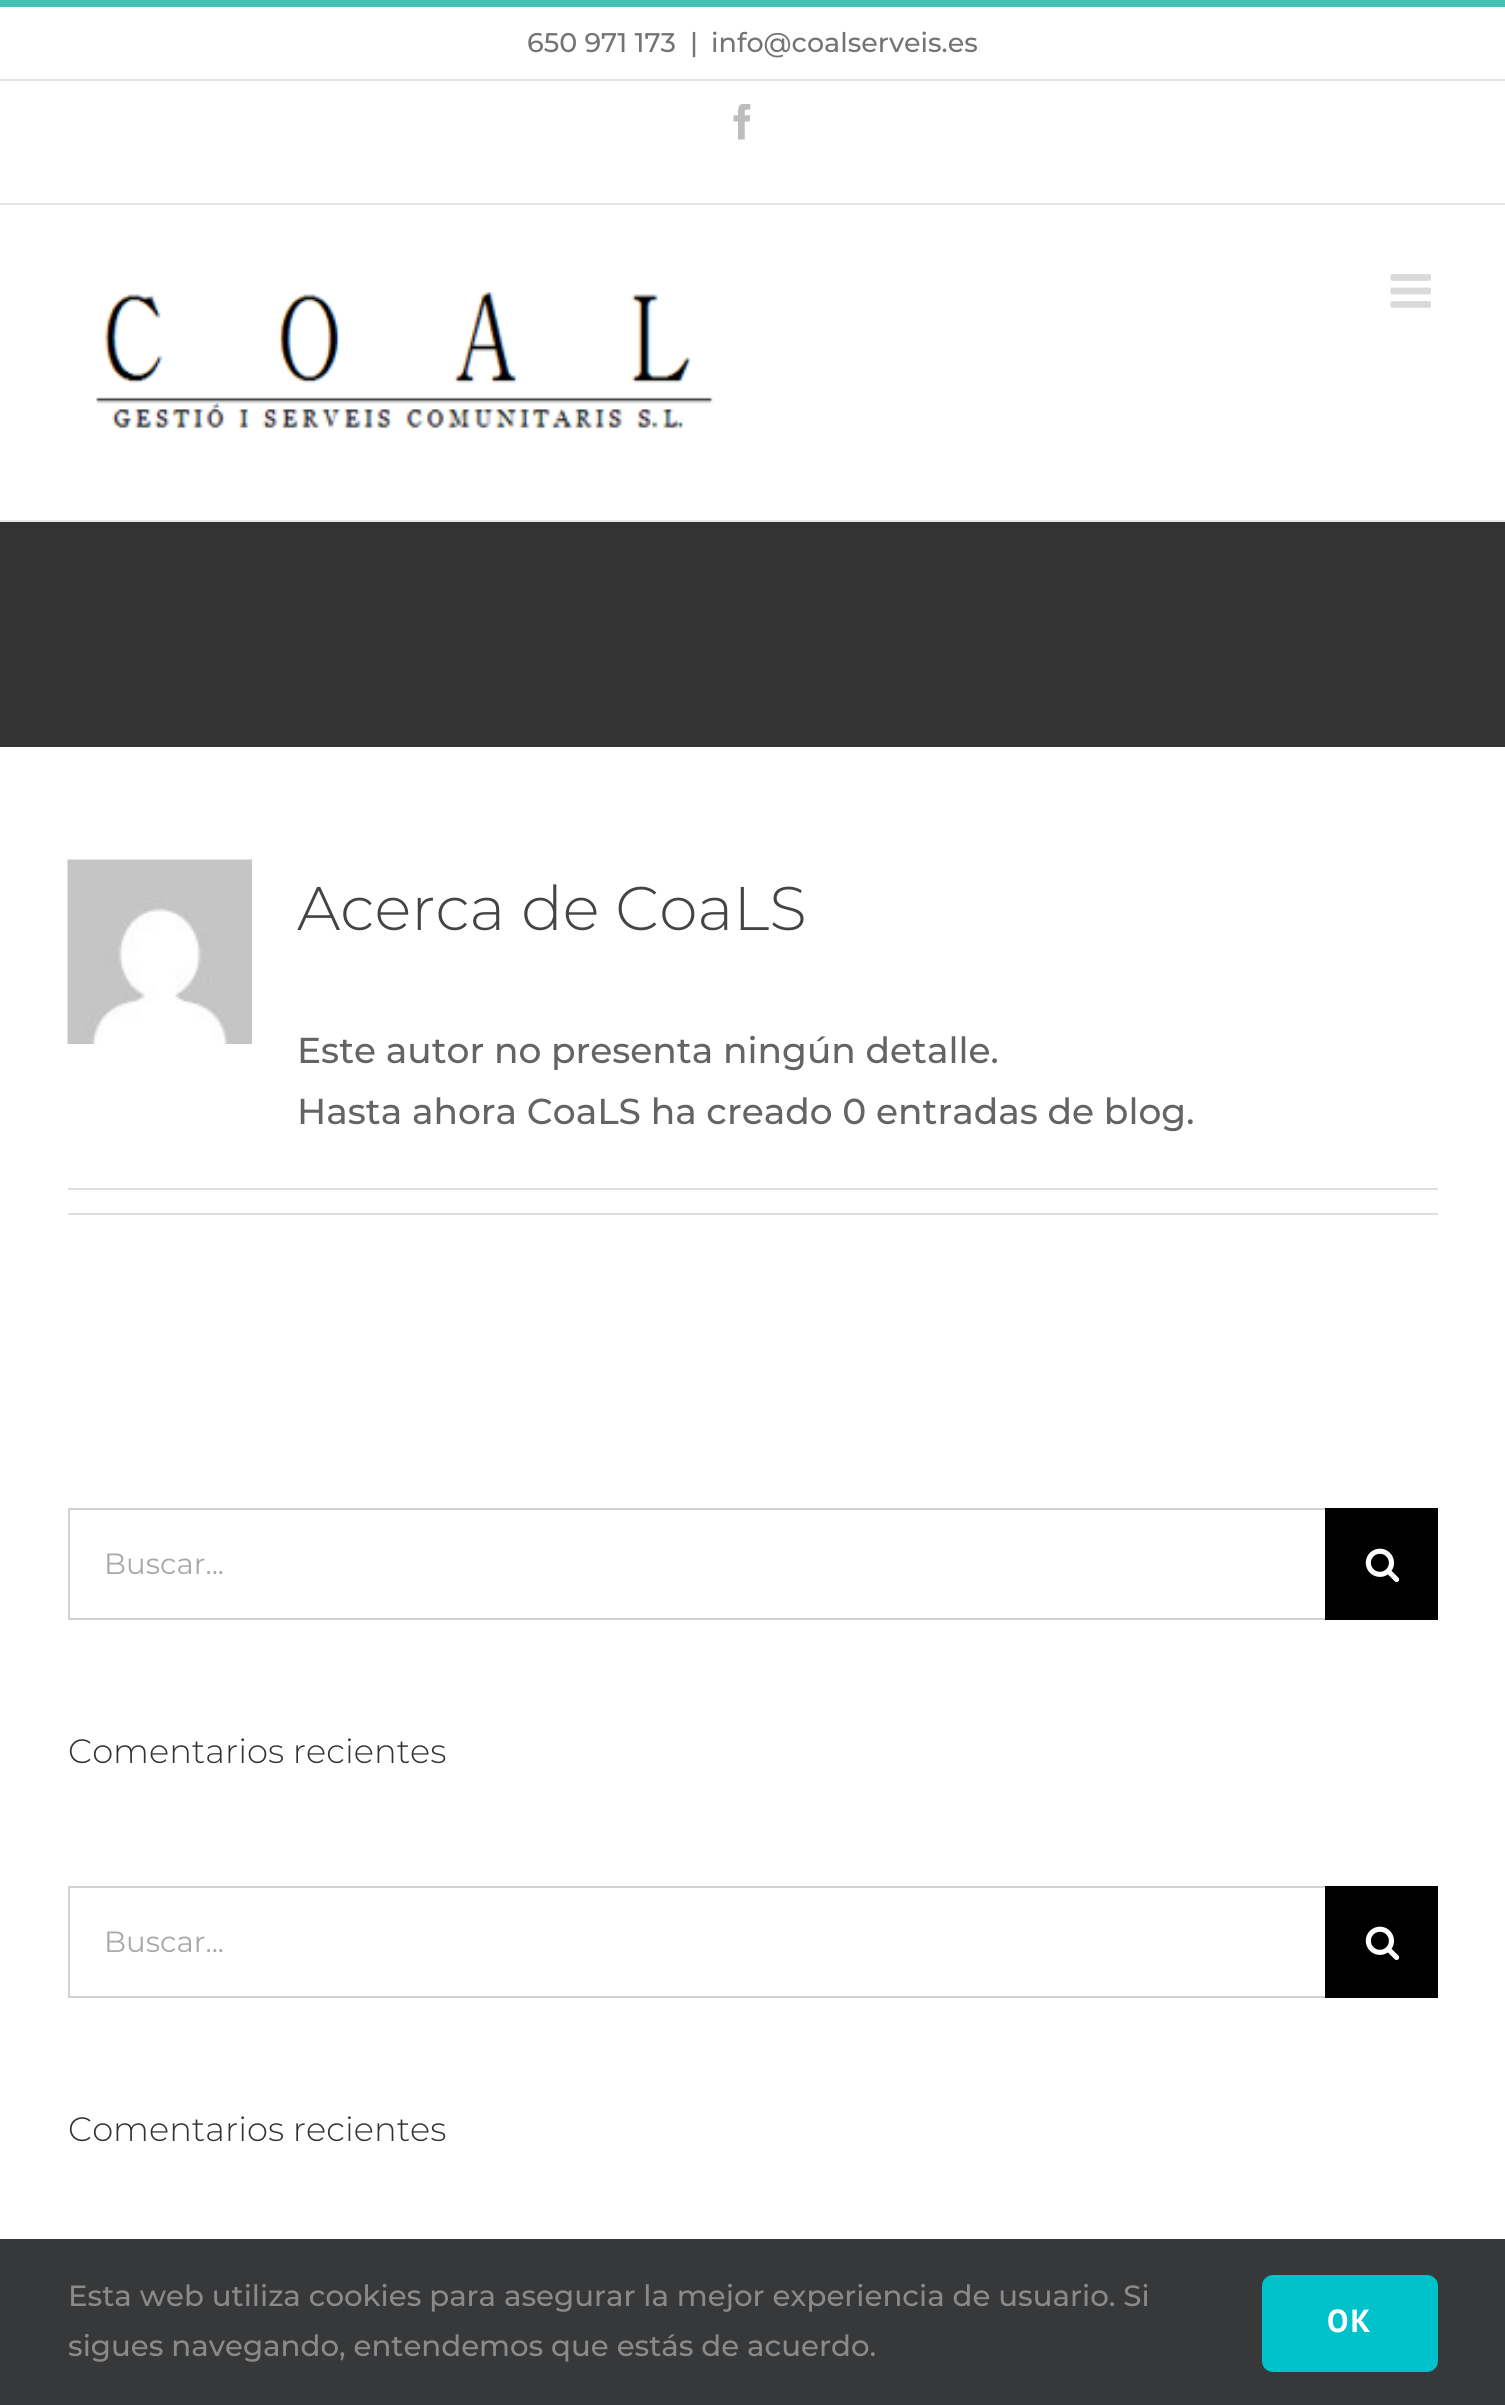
import math
import cairo

surface = cairo.ImageSurface(cairo.Format.RGB24, 1505, 2405)
ctx = cairo.Context(surface)
options = cairo.FontOptions()
options.set_hint_metrics(cairo.HintMetrics.OFF)
options.set_hint_style(cairo.HintStyle.NONE)
ctx.set_font_options(options)
ctx.set_miter_limit(4)


def ink(r, g, b):
    ctx.set_source_rgb(r / 255, g / 255, b / 255)


def write(x, y, s, family, size, color, bold=False, italic=False):
    ctx.select_font_face(family, cairo.FontSlant.ITALIC if italic else cairo.FontSlant.NORMAL, cairo.FontWeight.BOLD if bold else cairo.FontWeight.NORMAL)
    ctx.set_font_size(size)
    ink(*color)
    ctx.move_to(x, y)
    ctx.show_text(s)


def write_spaced(x, y, s, letter, word):
    ctx.move_to(x, y)
    for ch in s:
        ctx.show_text(ch)
        ctx.rel_move_to(letter + word * (ch == ' '), 0)


def block(x, y, w, h, *color):
    ink(*color)
    ctx.rectangle(x, y, w, h)
    ctx.fill()


def round_path(x, y, w, h, r):
    ctx.new_sub_path()
    for i, (u, v) in enumerate([(x + w - r, y + h - r), (x + r, y + h - r), (x + r, y + r), (x + w - r, y + r)]):
        ctx.arc(u, v, r, i * math.pi / 2, (i + 1) * math.pi / 2)
    ctx.close_path()


def paste(path, x, y, w, h):
    ctx.save()
    ctx.set_source_surface(cairo.ImageSurface.create_from_png(path), x, y)
    ctx.rectangle(x, y, w, h)
    ctx.fill()
    ctx.restore()


s1 = dict(family="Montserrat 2 Thin", size=27, color=(116, 116, 116))
s2 = dict(family="Montserrat Thin", size=61.5, color=(68, 68, 68))
s3 = dict(family="Montserrat 2 Thin", size=36, color=(100, 100, 100))
s4 = dict(family="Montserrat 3 Thin", size=29.25, color=(170, 169, 169))
s5 = dict(family="Montserrat Thin", size=33.75, color=(51, 51, 51))
s6 = dict(family="Montserrat 2 Thin", size=29.25, color=(140, 137, 137))

ink(255, 255, 255)
ctx.paint()
block(0, 0, 1505, 7, 72, 191, 179)
block(0, 203, 1505, 2, 229, 229, 229)
block(0, 79, 1505, 2, 229, 229, 229)
write(527, 52, "650 971 173", **s1)
write(690, 52, "|", **s1)
write(711, 52, "info@coalserveis.es", **s1)
paste("pic1.png", 733, 104, 18, 36)
block(0, 520, 1505, 2, 229, 229, 229)
paste("pic2.png", 96, 291, 618, 138)
paste("pic3.png", 1390, 274, 41, 34)
block(0, 522, 1505, 225, 51, 51, 51)
paste("pic4.png", 67, 859, 185, 185)
write(297, 930, "Acerca de CoaLS", **s2)
write(297, 1063, "Este autor no presenta ningún detalle.", **s3)
write(297, 1124, "Hasta ahora CoaLS ha creado 0 entradas de blog.", **s3)
block(68, 1188, 1370, 2, 224, 222, 222)
block(68, 1213, 1370, 2, 224, 222, 222)
block(68, 1508, 1257, 2, 210, 210, 210)
block(68, 1618, 1257, 2, 210, 210, 210)
block(68, 1508, 2, 112, 210, 210, 210)
write(104, 1574, "Buscar...", **s4)
block(1325, 1508, 113, 112, 0, 0, 0)
paste("pic5.png", 1365, 1548, 35, 35)
write(68, 1763, "Comentarios recientes", **s5)
block(68, 1886, 1257, 2, 210, 210, 210)
block(68, 1996, 1257, 2, 210, 210, 210)
block(68, 1886, 2, 112, 210, 210, 210)
write(104, 1952, "Buscar...", **s4)
block(1325, 1886, 113, 112, 0, 0, 0)
paste("pic5.png", 1365, 1926, 35, 35)
write(68, 2141, "Comentarios recientes", **s5)
block(0, 2239, 1505, 166, 54, 56, 57)
write(68, 2306, "Esta web utiliza cookies para asegurar la mejor experiencia de usuario. Si", **s6)
write(68, 2356, "sigues navegando, entendemos que estás de acuerdo.", **s6)
ink(0, 194, 203)
round_path(1262, 2275, 176, 97, 11)
ctx.fill()
ctx.select_font_face("PT Sans", cairo.FontSlant.NORMAL, cairo.FontWeight.BOLD)
ctx.set_font_size(32)
ink(255, 255, 255)
write_spaced(1327, 2332, "OK", 2, 0)
surface.write_to_png("screenshot.png")
